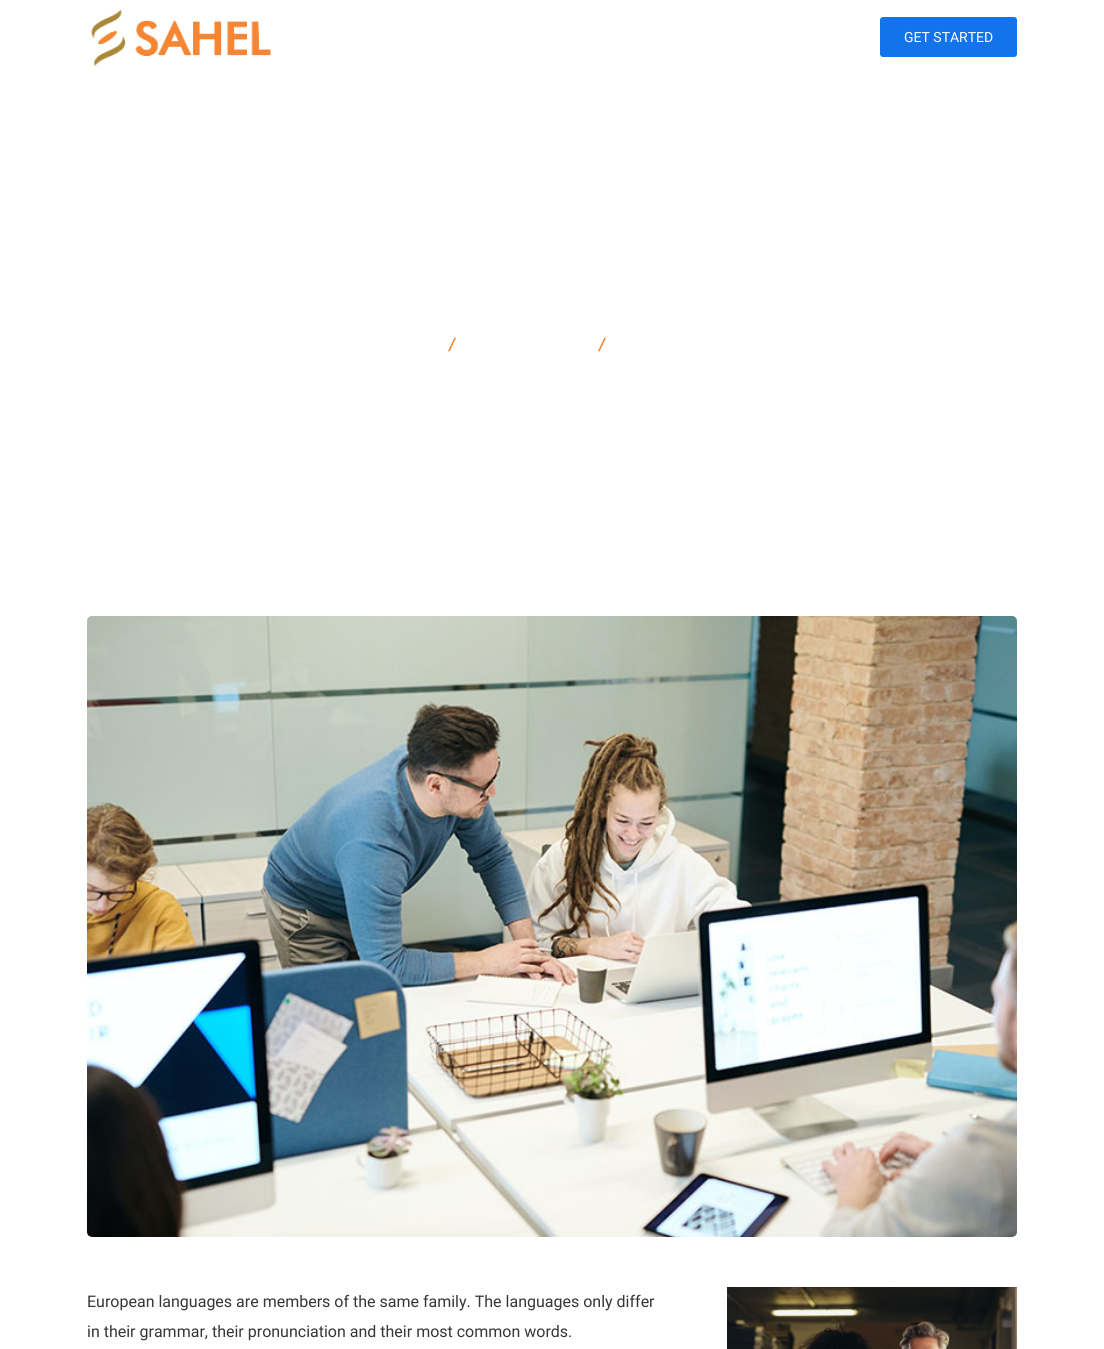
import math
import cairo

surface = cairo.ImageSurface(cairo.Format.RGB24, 1104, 1349)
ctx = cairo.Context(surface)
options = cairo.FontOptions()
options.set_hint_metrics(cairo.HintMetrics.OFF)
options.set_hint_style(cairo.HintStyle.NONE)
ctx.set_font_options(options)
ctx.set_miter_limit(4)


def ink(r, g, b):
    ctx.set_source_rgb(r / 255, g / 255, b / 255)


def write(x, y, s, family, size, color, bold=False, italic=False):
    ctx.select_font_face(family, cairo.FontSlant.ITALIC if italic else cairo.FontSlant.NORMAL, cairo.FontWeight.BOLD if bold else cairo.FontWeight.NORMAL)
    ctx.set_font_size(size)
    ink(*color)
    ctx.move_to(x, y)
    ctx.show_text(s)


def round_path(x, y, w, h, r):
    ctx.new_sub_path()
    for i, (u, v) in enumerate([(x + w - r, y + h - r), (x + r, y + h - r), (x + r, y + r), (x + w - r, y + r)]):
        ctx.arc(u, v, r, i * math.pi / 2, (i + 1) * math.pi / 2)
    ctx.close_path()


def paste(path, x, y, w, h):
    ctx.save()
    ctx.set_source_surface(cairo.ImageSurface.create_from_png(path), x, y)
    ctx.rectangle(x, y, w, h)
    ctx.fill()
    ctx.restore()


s1 = dict(family="Roboto", size=14, color=(255, 255, 255))
s2 = dict(family="Roboto", size=16, color=(54, 54, 54))

ink(255, 255, 255)
ctx.paint()
paste("pic1.png", 91, 9, 181, 57)
ink(18, 115, 235)
round_path(881, 18, 135, 38, 2)
ctx.fill_preserve()
ctx.stroke()
write(904, 42, "GET STARTED", **s1)
ink(245, 134, 52)
ctx.new_path()
ctx.move_to(454.5, 337.5)
ctx.line_to(456, 338)
ctx.line_to(449.5, 351.5)
ctx.line_to(448, 351)
ctx.close_path()
ctx.fill()
ctx.new_path()
ctx.move_to(604.5, 337.5)
ctx.line_to(606, 338)
ctx.line_to(599.5, 351.5)
ctx.line_to(598, 351)
ctx.close_path()
ctx.fill()
paste("pic2.png", 87, 616, 930, 621)
write(87, 1307, "European languages are members of the same family. The languages only differ", **s2)
write(87, 1337, "in their grammar, their pronunciation and their most common words.", **s2)
paste("pic3.png", 727, 1287, 290, 62)
surface.write_to_png("screenshot.png")
